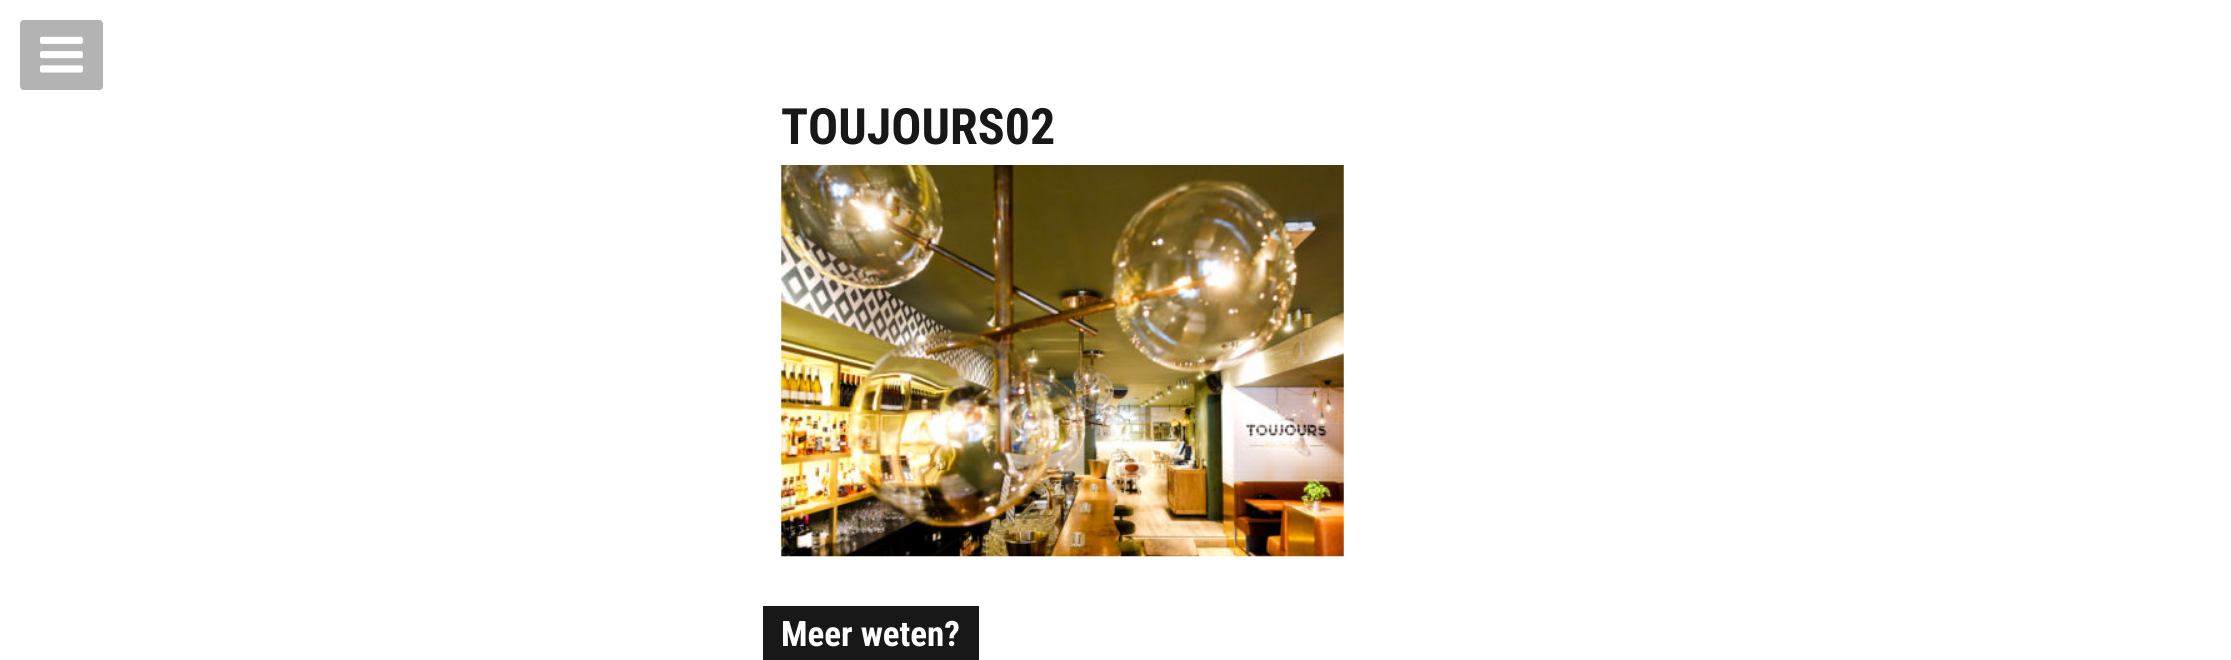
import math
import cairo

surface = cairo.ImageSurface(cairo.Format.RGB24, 2231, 660)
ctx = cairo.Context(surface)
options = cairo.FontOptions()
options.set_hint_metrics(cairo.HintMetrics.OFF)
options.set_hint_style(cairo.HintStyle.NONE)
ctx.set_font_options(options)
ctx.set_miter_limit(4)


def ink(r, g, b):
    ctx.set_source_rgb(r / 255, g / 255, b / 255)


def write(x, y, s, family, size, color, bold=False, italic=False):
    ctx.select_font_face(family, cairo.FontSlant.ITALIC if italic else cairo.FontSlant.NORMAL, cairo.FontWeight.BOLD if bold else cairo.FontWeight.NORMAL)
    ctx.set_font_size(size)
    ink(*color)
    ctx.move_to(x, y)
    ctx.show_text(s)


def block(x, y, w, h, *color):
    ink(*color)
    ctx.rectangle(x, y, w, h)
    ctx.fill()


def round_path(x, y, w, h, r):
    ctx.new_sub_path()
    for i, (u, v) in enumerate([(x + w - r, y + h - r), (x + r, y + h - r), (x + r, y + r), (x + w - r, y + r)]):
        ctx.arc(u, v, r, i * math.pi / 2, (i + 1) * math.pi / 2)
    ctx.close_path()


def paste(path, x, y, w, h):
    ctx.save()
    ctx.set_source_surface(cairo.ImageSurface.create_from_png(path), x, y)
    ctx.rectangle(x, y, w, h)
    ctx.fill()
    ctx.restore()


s1 = dict(family="Roboto Condensed", size=50, color=(24, 24, 24), bold=True)
s2 = dict(family="Roboto Condensed", size=35, color=(255, 255, 255), bold=True)

ink(255, 255, 255)
ctx.paint()
ink(179, 179, 179)
round_path(19.5, 19.5, 84, 71, 4.5)
ctx.fill_preserve()
ink(255, 255, 255)
ctx.set_line_width(1)
ctx.stroke()
paste("pic1.png", 40, 36, 43, 37)
write(781, 144, "TOUJOURS02", **s1)
paste("pic2.png", 781, 165, 563, 392)
block(763, 606, 216, 54, 24, 24, 24)
write(781, 646, "Meer weten?", **s2)
surface.write_to_png("screenshot.png")
